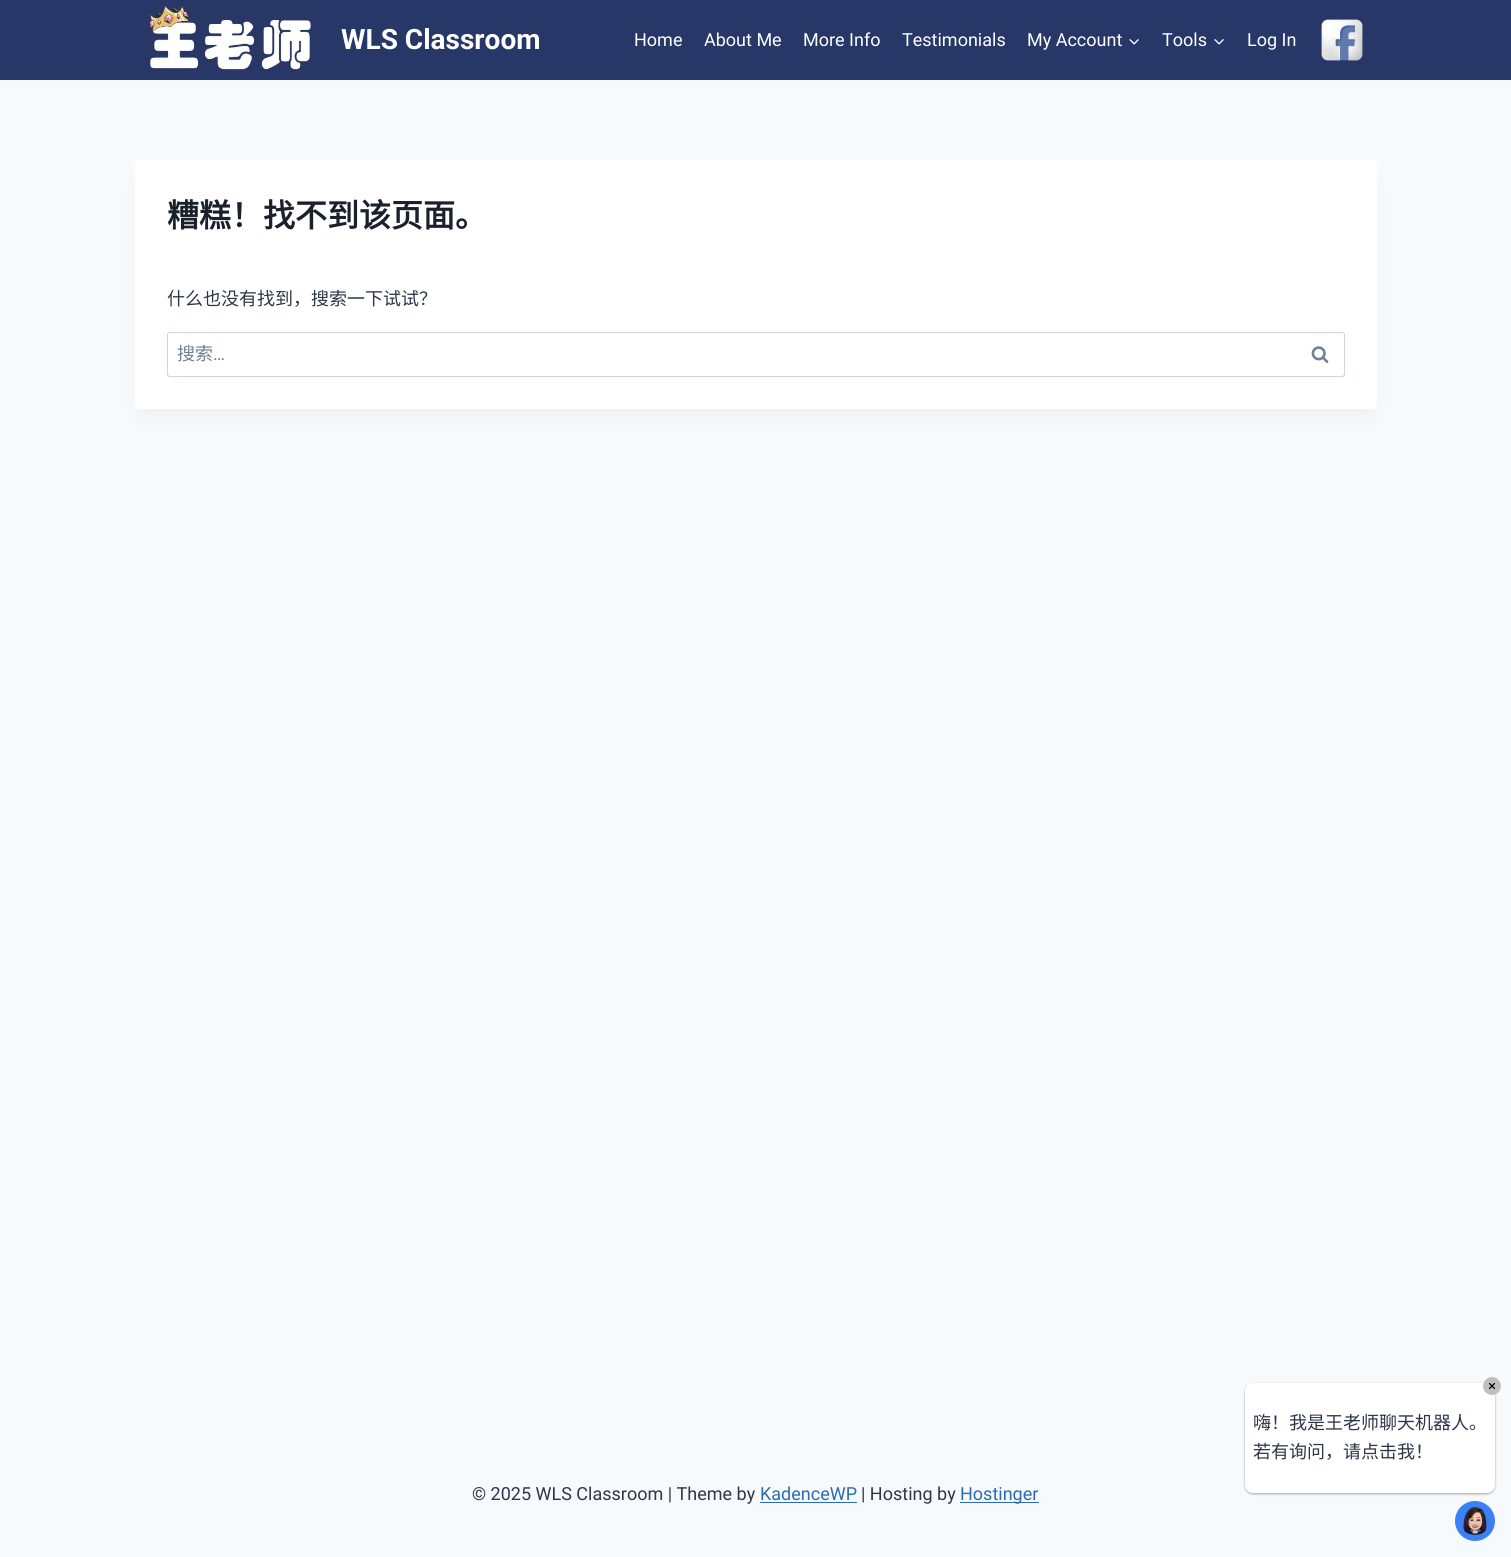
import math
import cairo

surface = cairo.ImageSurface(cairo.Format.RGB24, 1511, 1557)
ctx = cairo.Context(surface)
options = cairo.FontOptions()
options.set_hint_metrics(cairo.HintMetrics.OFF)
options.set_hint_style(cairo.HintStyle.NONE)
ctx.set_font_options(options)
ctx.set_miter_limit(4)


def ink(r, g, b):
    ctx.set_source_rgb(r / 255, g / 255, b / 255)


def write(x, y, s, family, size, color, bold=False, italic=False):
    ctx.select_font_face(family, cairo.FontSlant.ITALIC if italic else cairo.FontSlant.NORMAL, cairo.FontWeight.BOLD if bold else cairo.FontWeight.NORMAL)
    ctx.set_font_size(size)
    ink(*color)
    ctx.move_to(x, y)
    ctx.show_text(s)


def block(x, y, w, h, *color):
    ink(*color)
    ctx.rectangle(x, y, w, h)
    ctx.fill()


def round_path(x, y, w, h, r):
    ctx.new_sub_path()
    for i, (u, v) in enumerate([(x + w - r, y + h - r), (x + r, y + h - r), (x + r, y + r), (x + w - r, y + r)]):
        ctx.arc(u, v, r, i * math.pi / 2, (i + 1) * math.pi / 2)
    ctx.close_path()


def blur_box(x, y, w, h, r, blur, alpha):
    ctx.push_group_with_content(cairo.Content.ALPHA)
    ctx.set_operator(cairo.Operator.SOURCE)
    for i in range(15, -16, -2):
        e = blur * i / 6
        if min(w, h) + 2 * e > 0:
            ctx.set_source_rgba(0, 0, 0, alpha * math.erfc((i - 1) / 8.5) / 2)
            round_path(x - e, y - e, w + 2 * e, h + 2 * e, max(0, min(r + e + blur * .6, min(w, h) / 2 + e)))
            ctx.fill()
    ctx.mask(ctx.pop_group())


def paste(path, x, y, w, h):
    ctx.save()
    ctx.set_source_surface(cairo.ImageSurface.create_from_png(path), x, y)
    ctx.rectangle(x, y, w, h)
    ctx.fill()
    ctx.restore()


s1 = dict(family="Roboto", size=28, color=(255, 255, 255), bold=True)
s2 = dict(family="Roboto", size=18, color=(255, 255, 255))
s3 = dict(family="Noto Sans CJK SC", size=32, color=(26, 32, 44), bold=True)
s4 = dict(family="Noto Sans CJK SC", size=18, color=(45, 55, 72))
s5 = dict(family="Noto Sans CJK SC", size=18, color=(113, 128, 150))
s6 = dict(family="Roboto", size=18, color=(113, 128, 150))
s7 = dict(family="Roboto", size=18, color=(45, 55, 72))
s8 = dict(family="Roboto", size=18, color=(43, 108, 176))

ink(247, 250, 252)
ctx.paint()
block(0, 0, 1511, 80, 39, 55, 103)
paste("pic1.png", 148, 5, 164, 67)
write(341, 49, "WLS Classroom", **s1)
write(634, 46, "Home", **s2)
write(704, 46, "About Me", **s2)
write(803, 46, "More Info", **s2)
write(902, 46, "Testimonials", **s2)
write(1027, 46, "My Account", **s2)
paste("pic2.png", 1129, 39, 10, 6)
write(1162, 46, "Tools", **s2)
paste("pic2.png", 1214, 39, 10, 6)
write(1247, 46, "Log In", **s2)
paste("pic3.png", 1321, 19, 42, 42)
ink(0, 0, 0)
blur_box(145, 185, 1222, 229, 0, 12.5, 0.05)
ink(255, 255, 255)
round_path(135, 160, 1242, 249, 4)
ctx.fill()
write(167, 227, "糟糕！找不到该页面。", **s3)
write(167, 305, "什么也没有找到，搜索一下试试？", **s4)
round_path(167.5, 332.5, 1177, 44, 2.5)
ink(203, 213, 224)
ctx.set_line_width(1)
ctx.stroke()
write(177, 360, "搜索", **s5)
write(213, 360, "…", **s6)
paste("pic4.png", 1311, 346, 18, 17)
write(472, 1500, "© 2025 WLS Classroom | Theme by", **s7)
write(760, 1500, "KadenceWP", **s8)
block(760, 1502, 97, 1, 43, 108, 176)
write(861, 1500, "| Hosting by", **s7)
block(960, 1502, 79, 1, 43, 108, 176)
write(960, 1500, "Hostinger", **s8)
ink(0, 0, 0)
blur_box(1245, 1384, 250, 110, 8, 1, 0.24)
blur_box(1245, 1384, 250, 110, 8, 1.5, 0.12)
ink(255, 255, 255)
round_path(1245, 1383, 250, 110, 8)
ctx.fill()
paste("pic5.png", 1483, 1377, 18, 18)
write(1253, 1429, "嗨！我是王老师聊天机器人。", **s4)
write(1253, 1458, "若有询问，请点击我！", **s4)
ink(59, 129, 246)
ctx.new_path()
ctx.arc(1475, 1521, 20, 0, 2 * math.pi)
ctx.fill()
paste("pic6.png", 1463, 1507, 24, 29)
surface.write_to_png("screenshot.png")
